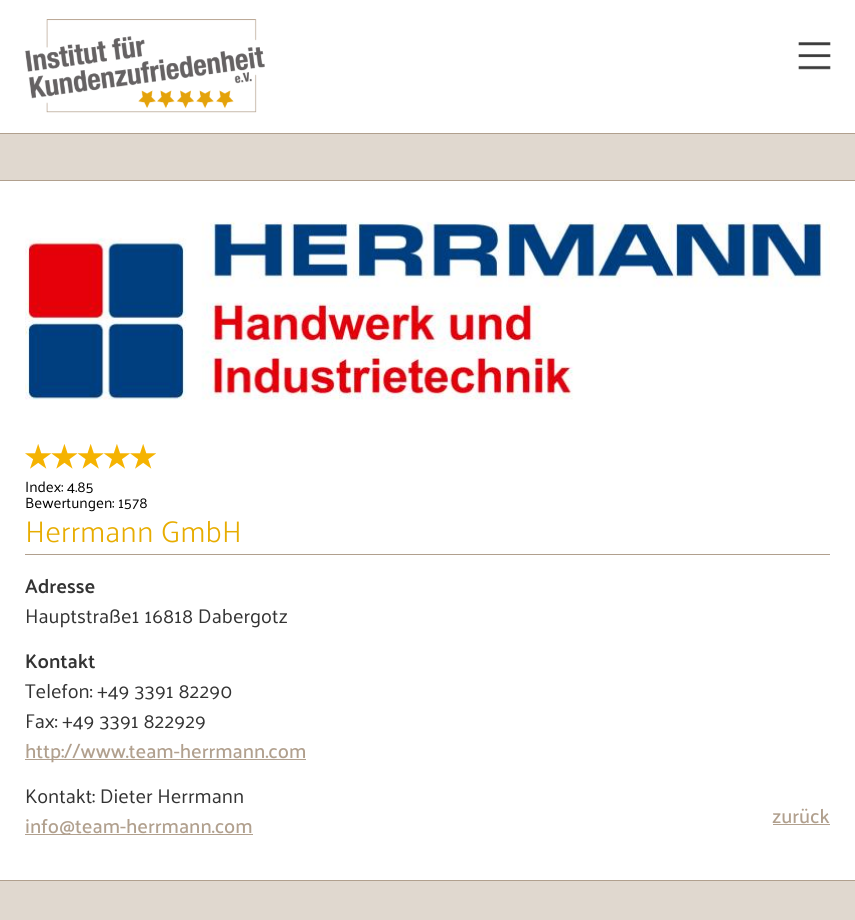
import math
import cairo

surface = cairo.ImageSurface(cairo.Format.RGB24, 855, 920)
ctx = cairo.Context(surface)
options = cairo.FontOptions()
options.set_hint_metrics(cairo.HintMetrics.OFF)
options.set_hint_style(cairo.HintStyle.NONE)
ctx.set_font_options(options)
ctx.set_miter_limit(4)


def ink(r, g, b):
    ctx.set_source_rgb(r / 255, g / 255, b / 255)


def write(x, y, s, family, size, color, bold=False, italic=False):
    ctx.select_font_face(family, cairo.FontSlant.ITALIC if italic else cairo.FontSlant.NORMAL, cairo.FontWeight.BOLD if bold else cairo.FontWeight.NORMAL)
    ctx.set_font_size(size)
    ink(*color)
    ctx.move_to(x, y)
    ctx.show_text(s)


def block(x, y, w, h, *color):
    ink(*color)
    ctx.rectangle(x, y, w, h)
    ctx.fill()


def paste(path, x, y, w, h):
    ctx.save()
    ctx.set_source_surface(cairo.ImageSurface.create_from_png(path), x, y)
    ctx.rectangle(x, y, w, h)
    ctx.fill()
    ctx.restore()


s1 = dict(family="Palanquin", size=15, color=(0, 0, 0))
s2 = dict(family="Palanquin Light", size=30, color=(231, 172, 0))
s3 = dict(family="Palanquin SemiBold", size=20, color=(51, 51, 51))
s4 = dict(family="Palanquin", size=20, color=(51, 51, 51))
s5 = dict(family="Palanquin Medium", size=20, color=(177, 160, 142))

ink(224, 216, 207)
ctx.paint()
block(0, 0, 855, 133, 255, 255, 255)
block(0, 133, 855, 1, 177, 160, 142)
paste("pic1.png", 24, 19, 241, 94)
paste("pic2.png", 798, 42, 33, 28)
block(0, 181, 855, 699, 255, 255, 255)
block(0, 180, 855, 1, 177, 160, 142)
block(0, 880, 855, 1, 177, 160, 142)
paste("pic3.png", 25, 221, 805, 179)
paste("pic4.png", 25, 444, 26, 25)
paste("pic5.png", 51, 444, 27, 25)
paste("pic6.png", 78, 444, 26, 25)
paste("pic7.png", 104, 444, 26, 25)
paste("pic4.png", 130, 444, 26, 25)
write(25, 492, "Index: 4.85", **s1)
write(25, 508, "Bewertungen: 1578", **s1)
block(25, 554, 805, 1, 177, 160, 142)
write(25, 542, "Herrmann GmbH", **s2)
write(25, 593, "Adresse", **s3)
write(25, 623, "Hauptstraße1 16818 Dabergotz", **s4)
write(25, 668, "Kontakt", **s3)
write(25, 698, "Telefon: +49 3391 82290", **s4)
write(25, 728, "Fax: +49 3391 822929", **s4)
block(25, 759, 281, 1, 177, 160, 142)
write(25, 758, "http://www.team-herrmann.com", **s5)
write(25, 803, "Kontakt: Dieter Herrmann", **s4)
block(25, 834, 228, 1, 177, 160, 142)
write(25, 833, "info@team-herrmann.com", **s5)
write(772, 823, "zurück", **s5)
block(773, 824, 57, 1, 177, 160, 142)
surface.write_to_png("screenshot.png")
